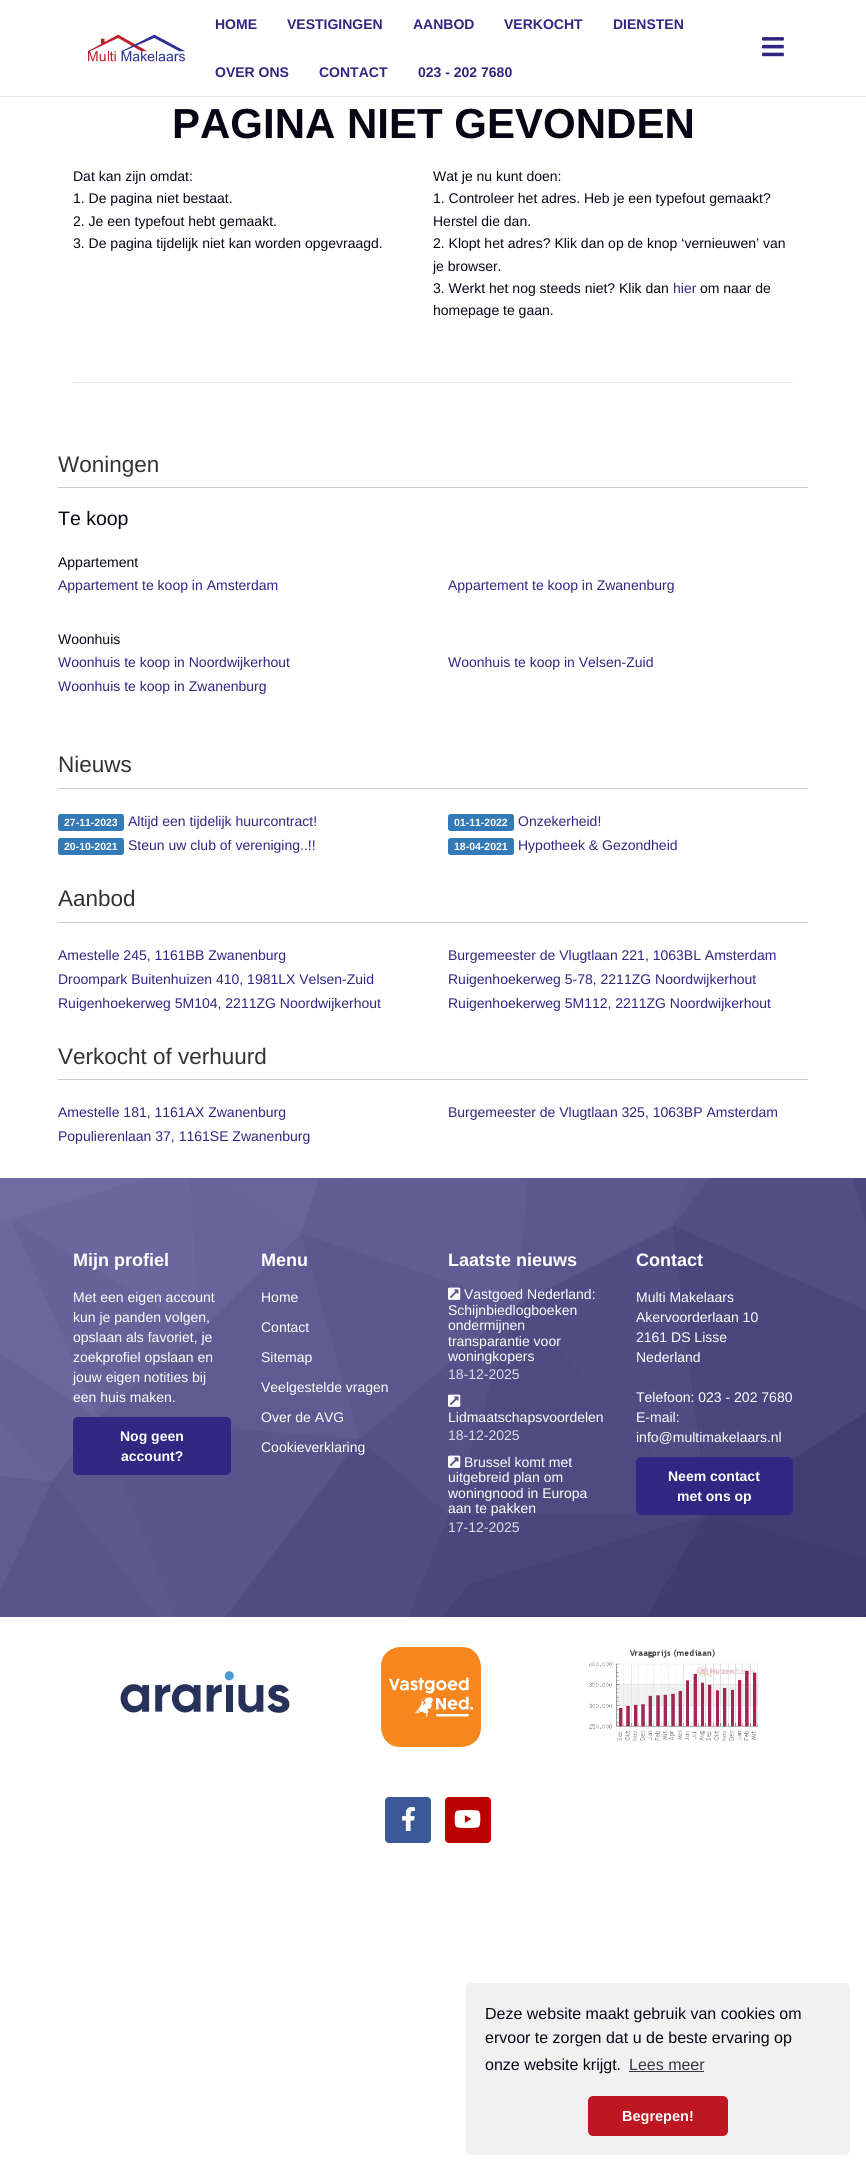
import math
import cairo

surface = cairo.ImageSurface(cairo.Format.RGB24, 866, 2171)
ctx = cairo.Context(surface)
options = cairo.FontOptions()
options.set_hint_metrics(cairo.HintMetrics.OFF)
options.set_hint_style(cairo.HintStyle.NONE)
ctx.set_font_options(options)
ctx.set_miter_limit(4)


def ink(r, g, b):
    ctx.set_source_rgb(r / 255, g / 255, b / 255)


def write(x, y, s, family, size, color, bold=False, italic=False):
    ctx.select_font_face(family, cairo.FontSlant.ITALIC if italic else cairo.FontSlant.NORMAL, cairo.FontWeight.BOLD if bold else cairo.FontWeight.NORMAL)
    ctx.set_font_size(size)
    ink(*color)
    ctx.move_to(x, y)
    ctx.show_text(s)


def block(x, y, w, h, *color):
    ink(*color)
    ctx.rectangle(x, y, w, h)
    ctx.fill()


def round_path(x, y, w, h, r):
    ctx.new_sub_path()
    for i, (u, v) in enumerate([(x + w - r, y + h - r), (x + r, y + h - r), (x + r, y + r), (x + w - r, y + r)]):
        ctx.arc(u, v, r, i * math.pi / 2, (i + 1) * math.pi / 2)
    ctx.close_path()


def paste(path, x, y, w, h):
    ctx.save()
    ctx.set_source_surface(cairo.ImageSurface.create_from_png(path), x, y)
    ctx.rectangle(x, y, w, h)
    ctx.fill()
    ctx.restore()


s1 = dict(family="Liberation Sans", size=14, color=(49, 39, 131), bold=True)
s2 = dict(family="Liberation Sans", size=42, color=(8, 6, 20), bold=True)
s3 = dict(family="Liberation Sans", size=14, color=(8, 6, 20))
s4 = dict(family="Liberation Sans", size=14, color=(49, 39, 131))
s5 = dict(family="Liberation Sans", size=22.5, color=(51, 51, 51))
s6 = dict(family="Liberation Sans", size=19.5, color=(8, 6, 20))
s7 = dict(family="Liberation Sans", size=10.5, color=(255, 255, 255), bold=True)
s8 = dict(family="Liberation Sans", size=18, color=(255, 255, 255), bold=True)
s9 = dict(family="Liberation Sans", size=14, color=(255, 255, 255))
s10 = dict(family="Liberation Sans", size=14, color=(255, 255, 255), bold=True)
s11 = dict(family="Liberation Sans", size=14, color=(221, 220, 231))
s12 = dict(family="Liberation Sans", size=16, color=(8, 6, 20))
s13 = dict(family="Liberation Sans", size=16, color=(55, 53, 64))
s14 = dict(family="Liberation Sans", size=14.5, color=(255, 255, 255), bold=True)

ink(255, 255, 255)
ctx.paint()
block(0, 96, 866, 1, 230, 230, 230)
paste("pic1.png", 88, 34, 97, 28)
write(215, 29, "HOME", **s1)
write(287, 29, "VESTIGINGEN", **s1)
write(413, 29, "AANBOD", **s1)
write(504, 29, "VERKOCHT", **s1)
write(613, 29, "DIENSTEN", **s1)
write(215, 77, "OVER ONS", **s1)
write(319, 77, "CONTACT", **s1)
write(418, 77, "023 - 202 7680", **s1)
paste("pic2.png", 762, 37, 22, 20)
block(73, 382, 720, 1, 229, 229, 229)
write(172, 138, "PAGINA NIET GEVONDEN", **s2)
write(73, 181, "Dat kan zijn omdat:", **s3)
write(73, 203, "1. De pagina niet bestaat.", **s3)
write(73, 226, "2. Je een typefout hebt gemaakt.", **s3)
write(73, 248, "3. De pagina tijdelijk niet kan worden opgevraagd.", **s3)
write(433, 181, "Wat je nu kunt doen:", **s3)
write(433, 203, "1. Controleer het adres. Heb je een typefout gemaakt?", **s3)
write(433, 226, "Herstel die dan.", **s3)
write(433, 248, "2. Klopt het adres? Klik dan op de knop ‘vernieuwen’ van", **s3)
write(433, 271, "je browser.", **s3)
write(433, 293, "3. Werkt het nog steeds niet? Klik dan", **s3)
write(673, 293, "hier", **s4)
write(700, 293, "om naar de", **s3)
write(433, 315, "homepage te gaan.", **s3)
block(58, 487, 750, 1, 204, 204, 204)
write(58, 472, "Woningen", **s5)
write(58, 525, "Te koop", **s6)
write(58, 567, "Appartement", **s3)
write(58, 590, "Appartement te koop in Amsterdam", **s4)
write(448, 590, "Appartement te koop in Zwanenburg", **s4)
write(58, 644, "Woonhuis", **s3)
write(58, 667, "Woonhuis te koop in Noordwijkerhout", **s4)
write(448, 667, "Woonhuis te koop in Velsen-Zuid", **s4)
write(58, 691, "Woonhuis te koop in Zwanenburg", **s4)
block(58, 788, 750, 1, 204, 204, 204)
write(58, 772, "Nieuws", **s5)
ink(51, 122, 183)
round_path(58, 814, 66, 17, 2.5)
ctx.fill()
write(64, 826, "27-11-2023", **s7)
write(128, 826, "Altijd een tijdelijk huurcontract!", **s4)
ink(51, 122, 183)
round_path(448, 814, 66, 17, 2.5)
ctx.fill()
write(454, 826, "01-11-2022", **s7)
write(518, 826, "Onzekerheid!", **s4)
ink(51, 122, 183)
round_path(58, 838, 66, 17, 2.5)
ctx.fill()
write(64, 850, "20-10-2021", **s7)
write(128, 850, "Steun uw club of vereniging..!!", **s4)
ink(51, 122, 183)
round_path(448, 838, 66, 17, 2.5)
ctx.fill()
write(454, 850, "18-04-2021", **s7)
write(518, 850, "Hypotheek & Gezondheid", **s4)
block(58, 922, 750, 1, 204, 204, 204)
write(58, 906, "Aanbod", **s5)
write(58, 960, "Amestelle 245, 1161BB Zwanenburg", **s4)
write(448, 960, "Burgemeester de Vlugtlaan 221, 1063BL Amsterdam", **s4)
write(58, 984, "Droompark Buitenhuizen 410, 1981LX Velsen-Zuid", **s4)
write(448, 984, "Ruigenhoekerweg 5-78, 2211ZG Noordwijkerhout", **s4)
write(58, 1008, "Ruigenhoekerweg 5M104, 2211ZG Noordwijkerhout", **s4)
write(448, 1008, "Ruigenhoekerweg 5M112, 2211ZG Noordwijkerhout", **s4)
block(58, 1079, 750, 1, 204, 204, 204)
write(58, 1064, "Verkocht of verhuurd", **s5)
write(58, 1117, "Amestelle 181, 1161AX Zwanenburg", **s4)
write(448, 1117, "Burgemeester de Vlugtlaan 325, 1063BP Amsterdam", **s4)
write(58, 1141, "Populierenlaan 37, 1161SE Zwanenburg", **s4)
block(0, 1178, 866, 439, 49, 39, 131)
paste("pic3.png", 0, 1178, 866, 439)
write(73, 1266, "Mijn profiel", **s8)
write(73, 1302, "Met een eigen account", **s9)
write(73, 1322, "kun je panden volgen,", **s9)
write(73, 1342, "opslaan als favoriet, je", **s9)
write(73, 1362, "zoekprofiel opslaan en", **s9)
write(73, 1382, "jouw eigen notities bij", **s9)
write(73, 1402, "een huis maken.", **s9)
ink(49, 39, 131)
round_path(73.5, 1417.5, 157, 57, 4.5)
ctx.fill_preserve()
ctx.set_line_width(1)
ctx.stroke()
write(120, 1441, "Nog geen", **s10)
write(121, 1461, "account?", **s10)
write(261, 1266, "Menu", **s8)
write(261, 1302, "Home", **s9)
write(261, 1332, "Contact", **s9)
write(261, 1362, "Sitemap", **s9)
write(261, 1392, "Veelgestelde vragen", **s9)
write(261, 1422, "Over de AVG", **s9)
write(261, 1452, "Cookieverklaring", **s9)
write(448, 1266, "Laatste nieuws", **s8)
paste("pic4.png", 448, 1287, 13, 13)
write(464, 1299, "Vastgoed Nederland:", **s9)
write(448, 1315, "Schijnbiedlogboeken", **s9)
write(448, 1330, "ondermijnen", **s9)
write(448, 1346, "transparantie voor", **s9)
write(448, 1361, "woningkopers", **s9)
write(448, 1379, "18-12-2025", **s11)
paste("pic5.png", 448, 1394, 13, 13)
write(448, 1422, "Lidmaatschapsvoordelen", **s9)
write(448, 1440, "18-12-2025", **s11)
paste("pic5.png", 448, 1455, 13, 13)
write(464, 1467, "Brussel komt met", **s9)
write(448, 1482, "uitgebreid plan om", **s9)
write(448, 1498, "woningnood in Europa", **s9)
write(448, 1513, "aan te pakken", **s9)
write(448, 1532, "17-12-2025", **s11)
write(636, 1266, "Contact", **s8)
write(636, 1302, "Multi Makelaars", **s9)
write(636, 1322, "Akervoorderlaan 10", **s9)
write(636, 1342, "2161 DS Lisse", **s9)
write(636, 1362, "Nederland", **s9)
write(636, 1402, "Telefoon: 023 - 202 7680", **s9)
write(636, 1422, "E-mail:", **s9)
write(636, 1442, "info@multimakelaars.nl", **s9)
ink(49, 39, 131)
round_path(636.5, 1457.5, 156, 57, 4.5)
ctx.fill_preserve()
ctx.stroke()
write(668, 1481, "Neem contact", **s10)
write(677, 1501, "met ons op", **s10)
paste("pic6.png", 120, 1671, 170, 42)
paste("pic7.png", 381, 1647, 100, 100)
paste("pic8.png", 589, 1649, 169, 92)
ink(59, 89, 152)
round_path(385, 1797, 46, 46, 4)
ctx.fill()
paste("pic9.png", 402, 1807, 13, 24)
ink(187, 0, 0)
round_path(445, 1797, 46, 46, 4)
ctx.fill()
paste("pic10.png", 454, 1810, 27, 18)
ink(241, 241, 241)
round_path(466, 1983, 384, 172, 5)
ctx.fill()
write(485, 2019, "Deze website maakt gebruik van cookies om", **s12)
write(485, 2043, "ervoor te zorgen dat u de beste ervaring op", **s12)
write(485, 2070, "onze website krijgt.", **s12)
write(629, 2070, "Lees meer", **s13)
block(629, 2071, 75, 1, 55, 53, 64)
ink(190, 22, 34)
round_path(588, 2096, 140, 40, 5)
ctx.fill()
write(622, 2121, "Begrepen!", **s14)
surface.write_to_png("screenshot.png")
